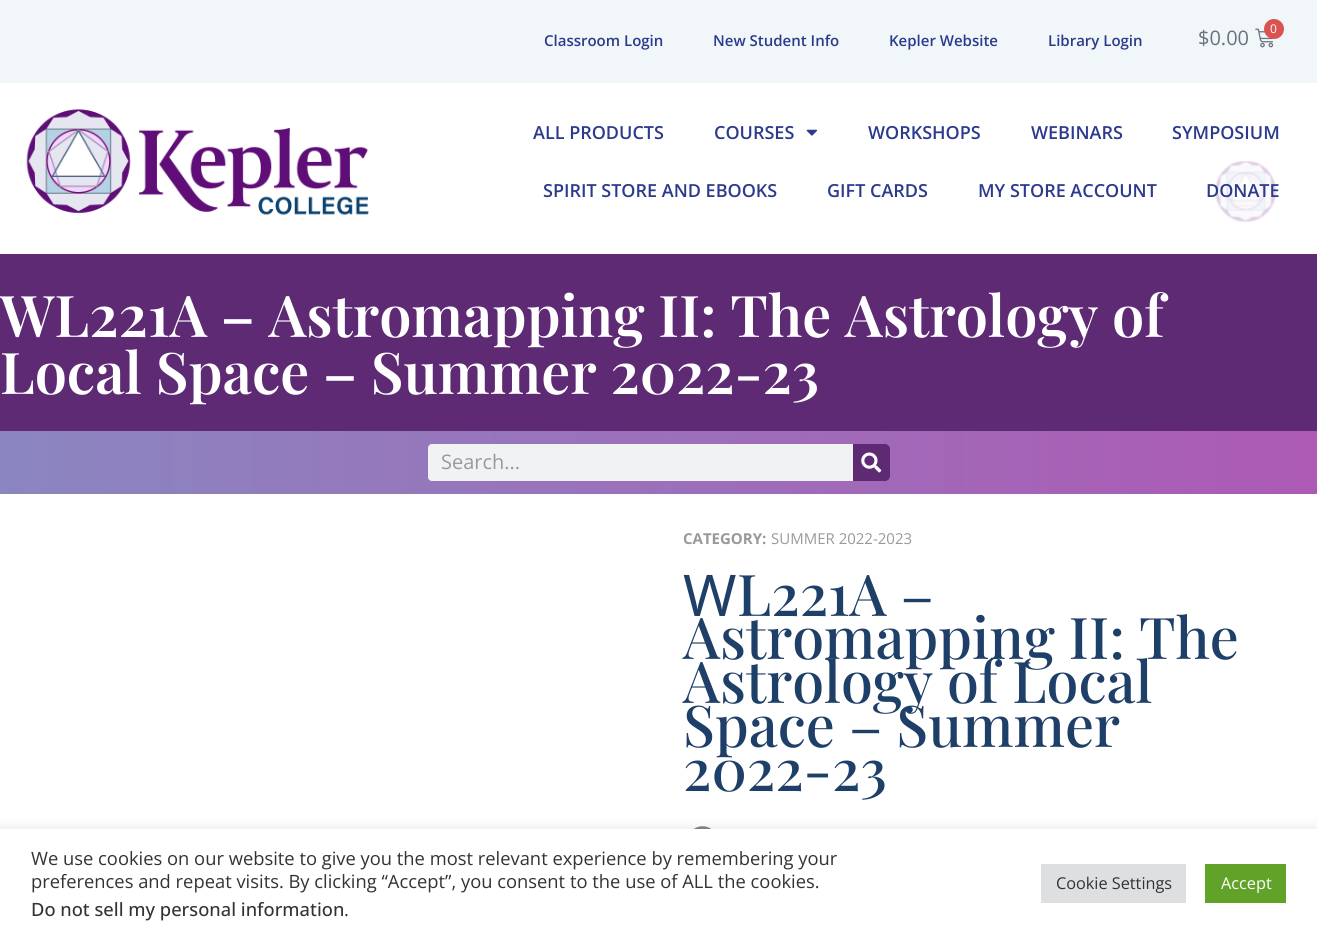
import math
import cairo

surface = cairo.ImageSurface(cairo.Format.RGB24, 1317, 937)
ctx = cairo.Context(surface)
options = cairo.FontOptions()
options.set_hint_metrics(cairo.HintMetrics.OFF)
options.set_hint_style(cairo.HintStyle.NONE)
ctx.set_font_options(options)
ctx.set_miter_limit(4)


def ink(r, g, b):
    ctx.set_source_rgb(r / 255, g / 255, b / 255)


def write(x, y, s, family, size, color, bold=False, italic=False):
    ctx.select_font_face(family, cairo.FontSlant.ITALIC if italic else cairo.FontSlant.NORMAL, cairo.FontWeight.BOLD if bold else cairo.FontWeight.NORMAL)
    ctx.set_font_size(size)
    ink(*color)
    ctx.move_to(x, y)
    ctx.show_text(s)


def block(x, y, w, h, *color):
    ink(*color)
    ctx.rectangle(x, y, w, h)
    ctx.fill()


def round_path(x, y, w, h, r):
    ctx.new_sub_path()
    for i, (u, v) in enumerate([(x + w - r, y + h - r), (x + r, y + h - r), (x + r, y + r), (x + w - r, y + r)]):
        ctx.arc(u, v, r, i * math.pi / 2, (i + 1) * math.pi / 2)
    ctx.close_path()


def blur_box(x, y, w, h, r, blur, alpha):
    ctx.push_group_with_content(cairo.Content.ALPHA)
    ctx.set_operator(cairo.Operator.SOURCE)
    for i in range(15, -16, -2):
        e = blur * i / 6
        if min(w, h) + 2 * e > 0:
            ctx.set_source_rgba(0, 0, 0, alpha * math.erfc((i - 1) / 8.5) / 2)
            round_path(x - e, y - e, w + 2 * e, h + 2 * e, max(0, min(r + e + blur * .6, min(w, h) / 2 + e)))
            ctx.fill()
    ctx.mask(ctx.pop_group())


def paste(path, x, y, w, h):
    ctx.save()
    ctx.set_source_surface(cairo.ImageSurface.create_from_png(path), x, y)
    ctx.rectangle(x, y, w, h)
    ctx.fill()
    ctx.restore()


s1 = dict(family="Open Sans SemiBold", size=15, color=(44, 58, 142))
s2 = dict(family="Open Sans", size=20, color=(105, 114, 125))
s3 = dict(family="Open Sans", size=12, color=(255, 255, 255))
s4 = dict(family="Open Sans SemiBold", size=18, color=(44, 58, 142))
s5 = dict(family="Playfair Display SemiBold", size=57.5, color=(255, 255, 255))
s6 = dict(family="Open Sans", size=20, color=(153, 153, 153))
s7 = dict(family="Open Sans", size=15, color=(153, 153, 153), bold=True)
s8 = dict(family="Open Sans", size=15, color=(153, 153, 153))
s9 = dict(family="Noto Sans", size=57.5, color=(30, 63, 103))
s10 = dict(family="Playfair Display Medium", size=57.5, color=(30, 63, 103))
s11 = dict(family="Open Sans", size=18.35, color=(51, 51, 51))
s12 = dict(family="Open Sans Medium", size=18.35, color=(51, 51, 51))
s13 = dict(family="Open Sans", size=16.25, color=(51, 51, 51))
s14 = dict(family="Open Sans", size=16.25, color=(255, 255, 255))

ink(255, 255, 255)
ctx.paint()
block(0, 0, 1317, 83, 241, 246, 249)
write(544, 46, "Classroom Login", **s1)
write(713, 46, "New Student Info", **s1)
write(889, 46, "Kepler Website", **s1)
write(1048, 46, "Library Login", **s1)
write(1198, 45, "$0.00", **s2)
paste("pic1.png", 1255, 28, 19, 20)
ink(217, 83, 79)
ctx.arc(1274, 29, 10, 0, 2 * math.pi)
ctx.fill()
write(1270, 33, "0", **s3)
paste("pic2.png", 26, 109, 343, 106)
write(533, 139, "ALL PRODUCTS", **s4)
write(714, 139, "COURSES", **s4)
paste("pic3.png", 806, 129, 12, 7)
write(868, 139, "WORKSHOPS", **s4)
write(1031, 139, "WEBINARS", **s4)
write(1172, 139, "SYMPOSIUM", **s4)
write(543, 197, "SPIRIT STORE AND EBOOKS", **s4)
write(827, 197, "GIFT CARDS", **s4)
write(978, 197, "MY STORE ACCOUNT", **s4)
paste("pic4.png", 1215, 161, 62, 62)
write(1206, 197, "DONATE", **s4)
block(0, 254, 1317, 177, 94, 42, 116)
write(0, 337, "WL221A – Astromapping II: The Astrology of", **s5)
write(0, 394, "Local Space – Summer 2022-23", **s5)
gradient = cairo.LinearGradient(0, 463, 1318, 462)
gradient.add_color_stop_rgba(0, 0.541, 0.525, 0.753, 1)
gradient.add_color_stop_rgba(1, 0.678, 0.353, 0.706, 1)
ctx.set_source(gradient)
ctx.rectangle(0, 431, 1317, 63)
ctx.fill()
ink(241, 242, 243)
round_path(428, 444, 462, 37, 4)
ctx.fill()
write(441, 469, "Search...", **s6)
ink(94, 42, 116)
ctx.new_path()
ctx.move_to(853, 444)
ctx.line_to(886, 444)
ctx.curve_to(888, 444, 890, 446, 890, 448)
ctx.line_to(890, 477)
ctx.curve_to(890, 479, 888, 481, 886, 481)
ctx.line_to(853, 481)
ctx.close_path()
ctx.fill()
paste("pic5.png", 861, 452, 21, 21)
write(683, 544, "CATEGORY:", **s7)
write(771, 544, "SUMMER 2022-2023", **s8)
write(683, 616, "W", **s9)
write(737, 616, "L221A –", **s10)
write(683, 659, "Astromapping II: The", **s10)
write(683, 703, "Astrology of Local", **s10)
write(683, 747, "Space – Summer", **s10)
write(683, 791, "2022-23", **s10)
paste("pic6.png", 694, 826, 17, 3)
ink(172, 171, 171)
blur_box(0, 828, 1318, 108, 0, 6, 0.3)
block(0, 829, 1317, 108, 255, 255, 255)
write(31, 865, "We use cookies on our website to give you the most relevant experience by remembering your", **s11)
write(31, 888, "preferences and repeat visits. By clicking “Accept”, you consent to the use of ALL the cookies.", **s11)
write(31, 916, "Do not sell my personal information", **s12)
write(344, 916, ".", **s11)
block(1041, 864, 145, 39, 222, 223, 224)
write(1056, 889, "Cookie Settings", **s13)
block(1205, 864, 81, 39, 97, 162, 41)
write(1221, 889, "Accept", **s14)
surface.write_to_png("screenshot.png")
